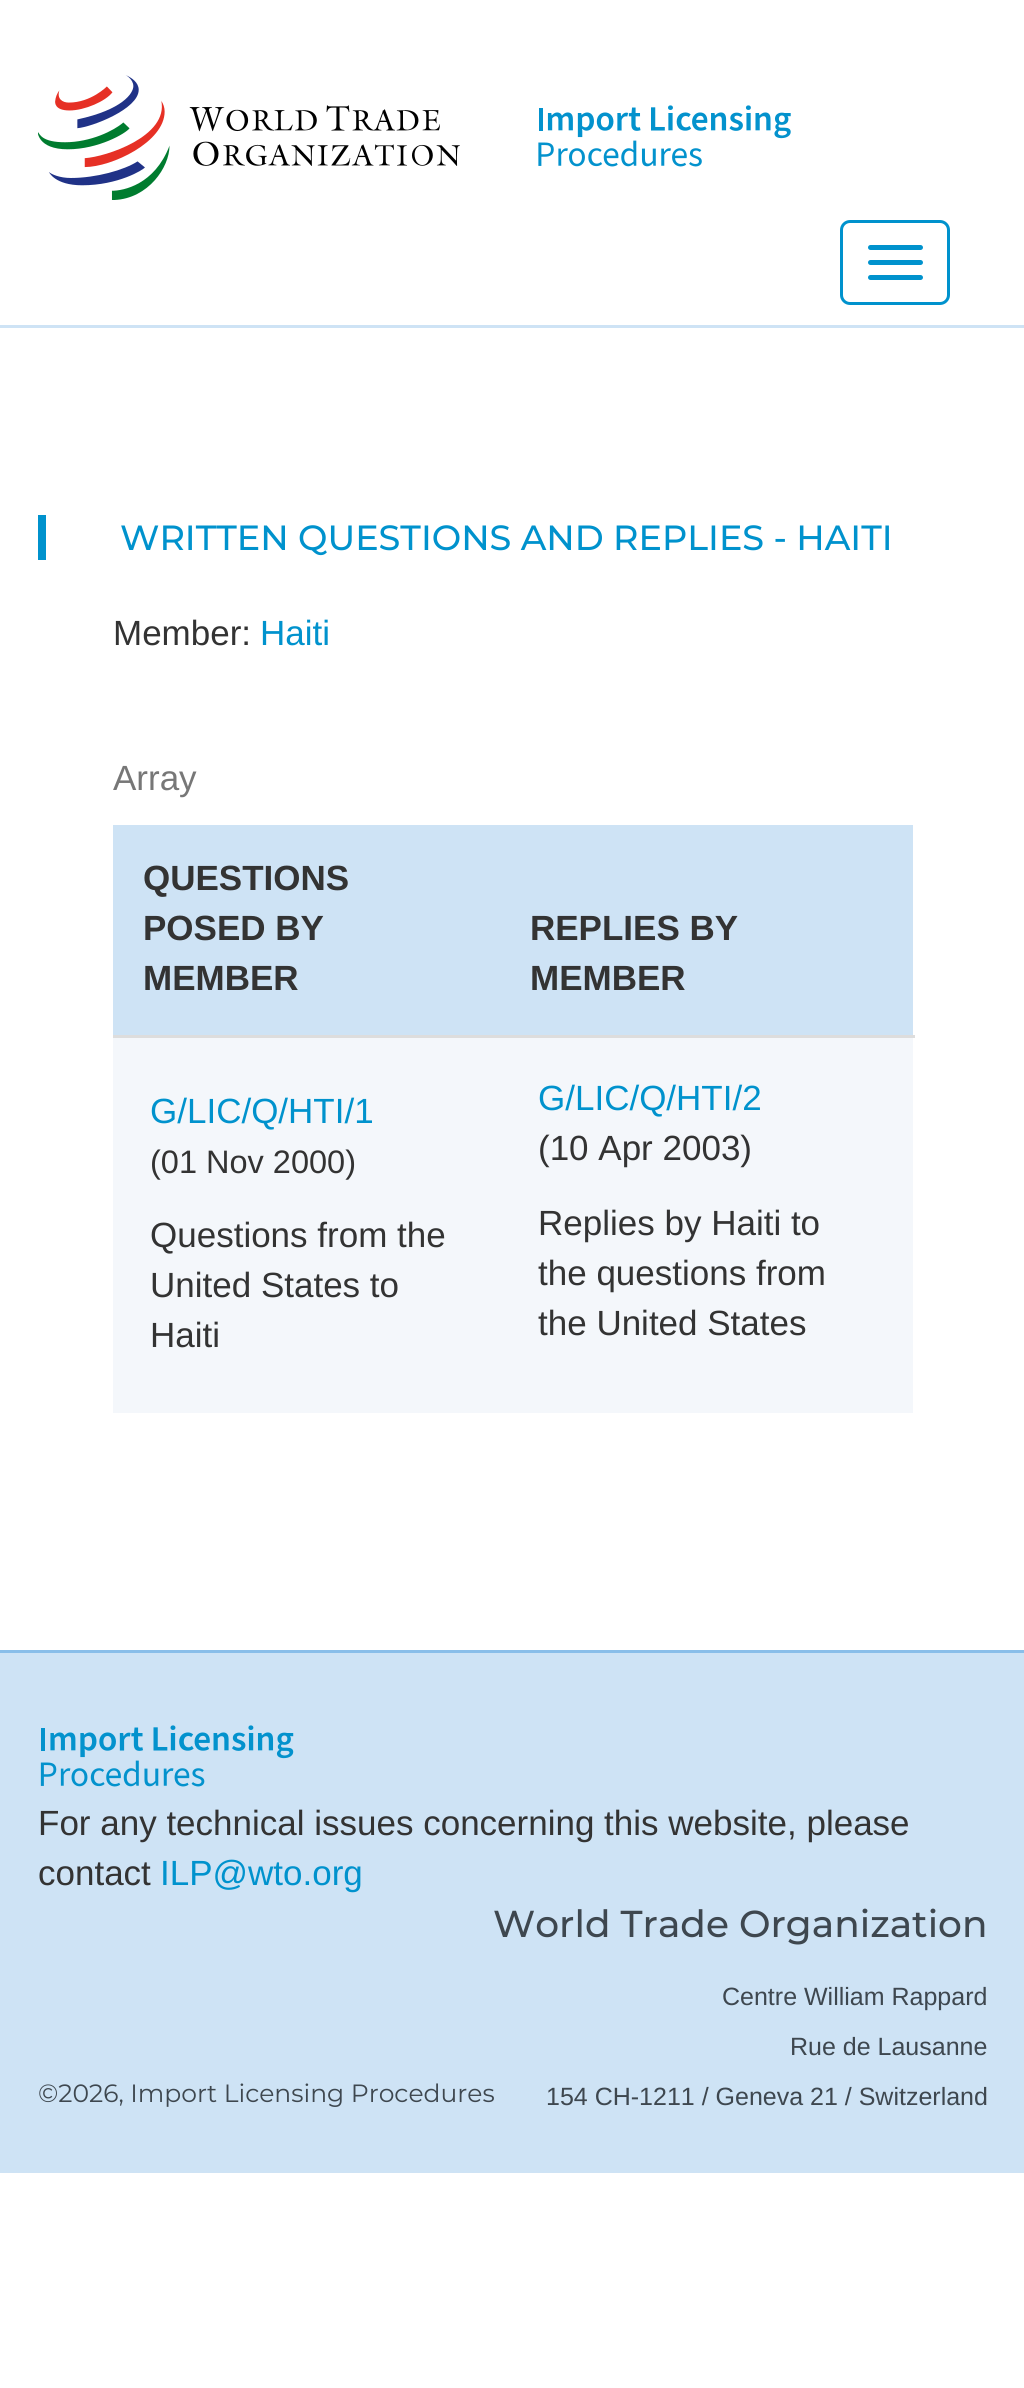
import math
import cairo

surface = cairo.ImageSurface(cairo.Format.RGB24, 1024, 2388)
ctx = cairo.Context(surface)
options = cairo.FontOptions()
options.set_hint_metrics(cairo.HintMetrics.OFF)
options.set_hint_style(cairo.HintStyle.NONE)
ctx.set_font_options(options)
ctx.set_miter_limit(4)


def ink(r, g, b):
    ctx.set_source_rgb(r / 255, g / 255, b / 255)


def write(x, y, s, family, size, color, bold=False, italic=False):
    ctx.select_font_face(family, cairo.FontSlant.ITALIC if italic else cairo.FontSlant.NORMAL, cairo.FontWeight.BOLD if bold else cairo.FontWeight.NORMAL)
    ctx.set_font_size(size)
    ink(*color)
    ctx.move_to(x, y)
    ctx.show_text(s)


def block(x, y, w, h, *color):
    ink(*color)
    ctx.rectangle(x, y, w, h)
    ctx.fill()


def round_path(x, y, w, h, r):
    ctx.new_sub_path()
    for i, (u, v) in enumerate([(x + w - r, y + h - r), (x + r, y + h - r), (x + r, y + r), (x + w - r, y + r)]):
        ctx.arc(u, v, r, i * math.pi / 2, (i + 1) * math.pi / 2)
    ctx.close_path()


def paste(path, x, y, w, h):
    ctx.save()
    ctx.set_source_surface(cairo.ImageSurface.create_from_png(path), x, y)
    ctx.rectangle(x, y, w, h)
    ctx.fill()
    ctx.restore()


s1 = dict(family="Montserrat Medium", size=35, color=(0, 146, 205))
s2 = dict(family="Liberation Sans", size=35, color=(51, 51, 51))
s3 = dict(family="Liberation Sans", size=35, color=(0, 146, 205))
s4 = dict(family="Liberation Sans", size=35, color=(119, 119, 119))
s5 = dict(family="Liberation Sans", size=35, color=(51, 51, 51), bold=True)
s6 = dict(family="Liberation Sans", size=32.5, color=(51, 51, 51))
s7 = dict(family="Montserrat Medium", size=37.5, color=(62, 71, 79))
s8 = dict(family="Montserrat", size=25, color=(62, 71, 79))
s9 = dict(family="Liberation Sans", size=25, color=(62, 71, 79))

ink(255, 255, 255)
ctx.paint()
paste("pic1.png", 38, 75, 422, 125)
paste("pic2.png", 538, 105, 253, 62)
block(0, 325, 1024, 3, 206, 227, 245)
round_path(841.5, 221.5, 107, 82, 8.5)
ink(0, 146, 205)
ctx.set_line_width(3)
ctx.stroke()
round_path(868, 245, 55, 5, 2.5)
ctx.fill()
round_path(868, 260, 55, 5, 2.5)
ctx.fill()
round_path(868, 275, 55, 5, 2.5)
ctx.fill()
block(38, 515, 8, 45, 0, 146, 205)
write(120, 550, "WRITTEN QUESTIONS AND REPLIES - HAITI", **s1)
write(113, 645, "Member:", **s2)
write(260, 645, "Haiti", **s3)
write(113, 790, "Array", **s4)
block(113, 825, 800, 210, 206, 227, 245)
write(143, 890, "QUESTIONS", **s5)
write(143, 940, "POSED BY", **s5)
write(143, 990, "MEMBER", **s5)
write(530, 940, "REPLIES BY", **s5)
write(530, 990, "MEMBER", **s5)
block(113, 1038, 800, 375, 244, 247, 251)
write(150, 1123, "G/LIC/Q/HTI/1", **s3)
write(150, 1173, "(01 Nov 2000)", **s6)
write(150, 1247, "Questions from the", **s2)
write(150, 1297, "United States to", **s2)
write(150, 1347, "Haiti", **s2)
block(113, 1035, 802, 3, 221, 221, 221)
write(538, 1110, "G/LIC/Q/HTI/2", **s3)
write(538, 1160, "(10 Apr 2003)", **s2)
write(538, 1235, "Replies by Haiti to", **s2)
write(538, 1285, "the questions from", **s2)
write(538, 1335, "the United States", **s2)
block(0, 1653, 1024, 520, 206, 227, 245)
block(0, 1650, 1024, 3, 137, 190, 233)
paste("pic3.png", 40, 1725, 254, 62)
write(38, 1835, "For any technical issues concerning this website, please", **s2)
write(38, 1885, "contact", **s2)
write(160, 1885, "ILP@wto.org", **s3)
write(493, 1937, "World Trade Organization", **s7)
write(38, 2102, "©2026, Import Licensing Procedures", **s8)
write(722, 2005, "Centre William Rappard", **s9)
write(790, 2055, "Rue de Lausanne", **s9)
write(546, 2105, "154 CH-1211 / Geneva 21 / Switzerland", **s9)
surface.write_to_png("screenshot.png")
